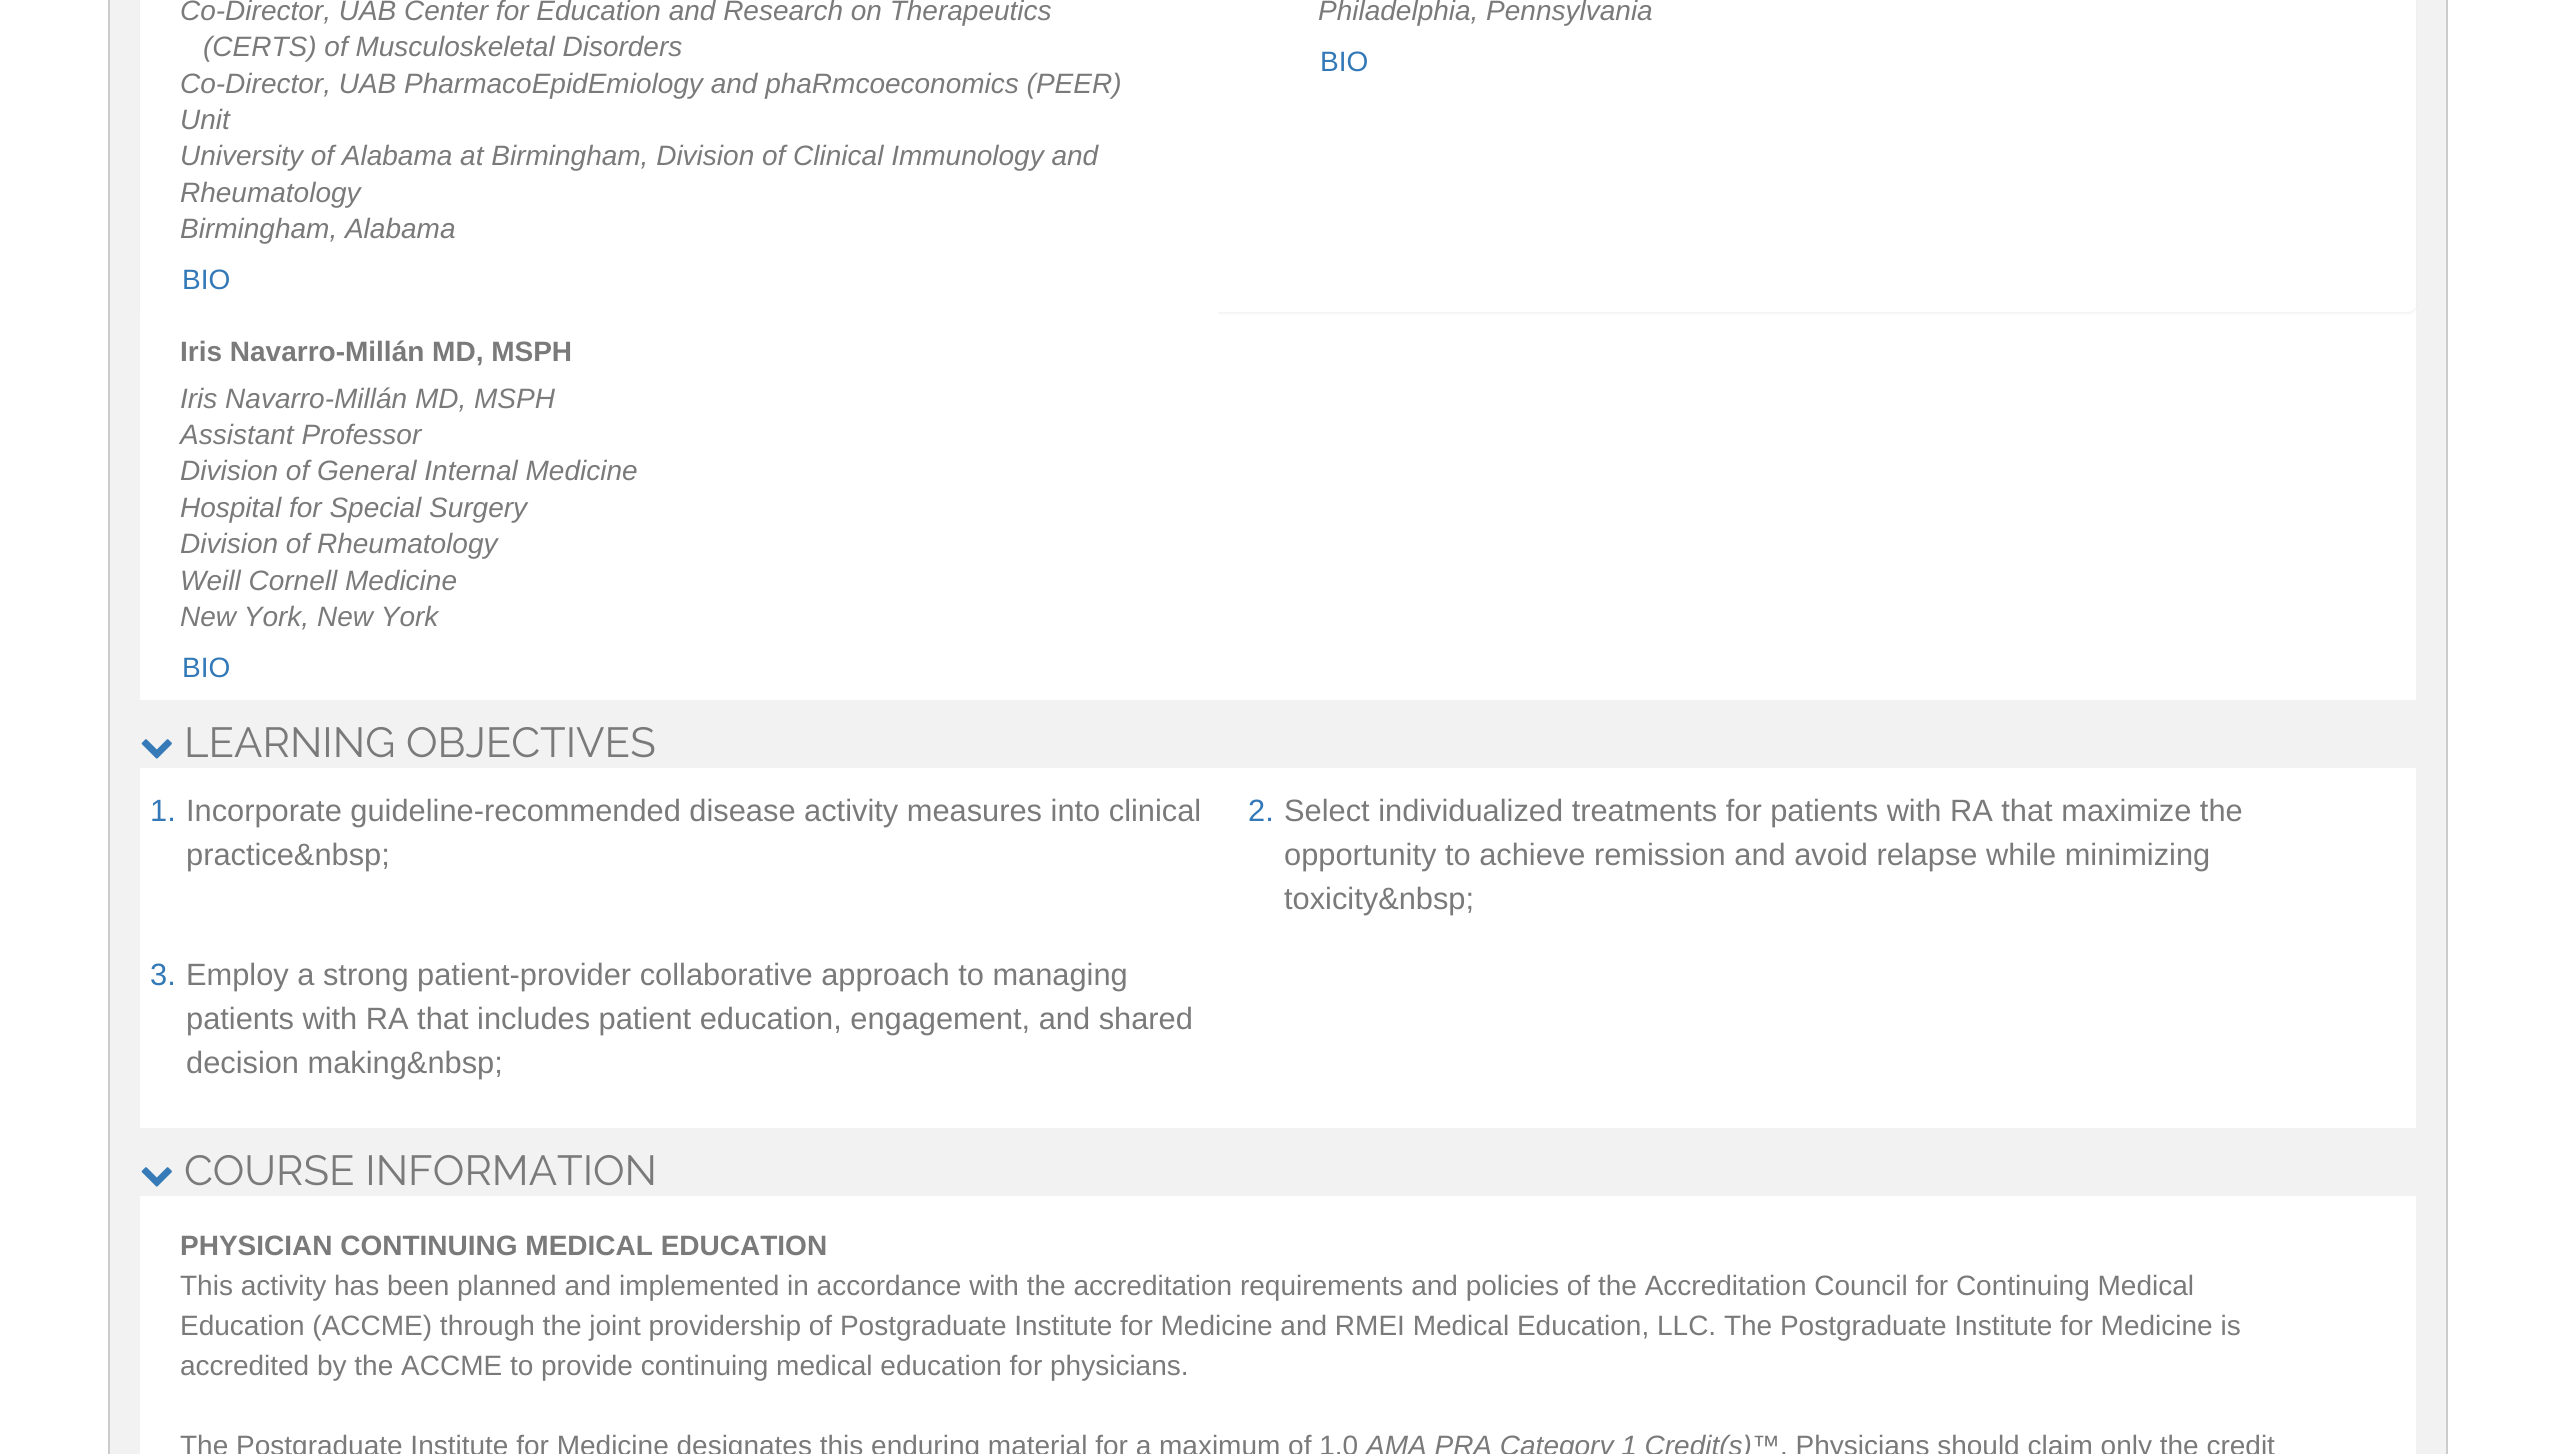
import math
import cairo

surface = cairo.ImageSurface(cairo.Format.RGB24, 2556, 1454)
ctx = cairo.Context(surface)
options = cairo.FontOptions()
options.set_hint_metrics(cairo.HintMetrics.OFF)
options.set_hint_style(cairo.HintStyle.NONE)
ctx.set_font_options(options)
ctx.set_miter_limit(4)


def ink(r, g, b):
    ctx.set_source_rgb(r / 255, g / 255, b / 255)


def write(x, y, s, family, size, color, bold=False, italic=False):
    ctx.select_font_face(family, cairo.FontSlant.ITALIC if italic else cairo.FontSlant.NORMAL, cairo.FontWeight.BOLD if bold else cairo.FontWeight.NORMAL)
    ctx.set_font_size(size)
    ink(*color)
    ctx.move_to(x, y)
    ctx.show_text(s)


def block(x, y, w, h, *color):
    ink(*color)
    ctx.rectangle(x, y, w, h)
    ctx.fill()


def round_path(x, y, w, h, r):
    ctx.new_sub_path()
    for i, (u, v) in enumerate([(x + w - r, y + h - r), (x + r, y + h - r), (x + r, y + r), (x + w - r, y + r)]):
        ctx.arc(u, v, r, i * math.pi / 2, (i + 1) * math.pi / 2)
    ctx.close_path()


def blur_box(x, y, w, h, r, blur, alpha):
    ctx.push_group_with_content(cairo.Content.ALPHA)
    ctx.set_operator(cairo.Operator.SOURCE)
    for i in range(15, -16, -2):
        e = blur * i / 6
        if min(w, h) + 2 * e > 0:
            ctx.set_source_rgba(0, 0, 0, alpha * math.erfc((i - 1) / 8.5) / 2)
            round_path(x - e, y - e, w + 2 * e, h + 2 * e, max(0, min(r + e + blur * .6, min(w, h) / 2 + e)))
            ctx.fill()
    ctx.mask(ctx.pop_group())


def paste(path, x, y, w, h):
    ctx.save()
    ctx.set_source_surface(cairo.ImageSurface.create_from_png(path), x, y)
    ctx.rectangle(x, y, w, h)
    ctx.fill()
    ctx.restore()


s1 = dict(family="Liberation Sans", size=28, color=(122, 122, 122), italic=True)
s2 = dict(family="Liberation Sans", size=28, color=(51, 121, 183))
s3 = dict(family="Liberation Sans", size=28, color=(122, 122, 122), bold=True)
s4 = dict(family="Raleway", size=42, color=(122, 122, 122))
s5 = dict(family="Liberation Sans", size=30.8, color=(51, 121, 183))
s6 = dict(family="Liberation Sans", size=30.8, color=(122, 122, 122))
s7 = dict(family="Liberation Sans", size=28, color=(122, 122, 122))

ink(255, 255, 255)
ctx.paint()
ctx.rectangle(109, -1, 2338, 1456)
ink(204, 204, 204)
ctx.stroke()
block(110, 0, 2336, 1454, 242, 242, 242)
block(1218, 304, 1198, 396, 255, 255, 255)
ink(0, 0, 0)
blur_box(140, -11, 2276, 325, 8, 1, 0.05)
ink(255, 255, 255)
round_path(140, -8, 2276, 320, 8)
ctx.fill()
block(140, 305, 7, 7, 255, 255, 255)
write(180, 20, "Co-Director, UAB Center for Education and Research on Therapeutics", **s1)
write(203, 56, "(CERTS) of Musculoskeletal Disorders", **s1)
write(180, 93, "Co-Director, UAB PharmacoEpidEmiology and phaRmcoeconomics (PEER)", **s1)
write(180, 129, "Unit", **s1)
write(180, 165, "University of Alabama at Birmingham, Division of Clinical Immunology and", **s1)
write(180, 202, "Rheumatology", **s1)
write(180, 238, "Birmingham, Alabama", **s1)
write(182, 289, "BIO", **s2)
write(1318, 20, "Philadelphia, Pennsylvania", **s1)
write(1320, 71, "BIO", **s2)
block(140, 312, 1078, 388, 255, 255, 255)
write(180, 361, "Iris Navarro-Millán MD, MSPH", **s3)
write(180, 408, "Iris Navarro-Millán MD, MSPH", **s1)
write(180, 444, "Assistant Professor", **s1)
write(180, 480, "Division of General Internal Medicine", **s1)
write(180, 517, "Hospital for Special Surgery", **s1)
write(180, 553, "Division of Rheumatology", **s1)
write(180, 590, "Weill Cornell Medicine", **s1)
write(180, 626, "New York, New York", **s1)
write(182, 677, "BIO", **s2)
paste("pic1.png", 141, 739, 31, 20)
write(184, 757, "LEARNING OBJECTIVES", **s4)
block(140, 768, 2276, 360, 255, 255, 255)
write(150, 821, "1.", **s5)
write(186, 821, "Incorporate guideline-recommended disease activity measures into clinical", **s6)
write(186, 865, "practice&nbsp;", **s6)
write(1248, 821, "2.", **s5)
write(1284, 821, "Select individualized treatments for patients with RA that maximize the", **s6)
write(1284, 865, "opportunity to achieve remission and avoid relapse while minimizing", **s6)
write(1284, 909, "toxicity&nbsp;", **s6)
write(150, 985, "3.", **s5)
write(186, 985, "Employ a strong patient-provider collaborative approach to managing", **s6)
write(186, 1029, "patients with RA that includes patient education, engagement, and shared", **s6)
write(186, 1073, "decision making&nbsp;", **s6)
paste("pic1.png", 141, 1167, 31, 20)
write(184, 1185, "COURSE INFORMATION", **s4)
block(140, 1196, 2276, 258, 255, 255, 255)
write(180, 1255, "PHYSICIAN CONTINUING MEDICAL EDUCATION", **s3)
write(180, 1295, "This activity has been planned and implemented in accordance with the accreditation requirements and policies of the Accreditation Council for Continuing Medical", **s7)
write(180, 1335, "Education (ACCME) through the joint providership of Postgraduate Institute for Medicine and RMEI Medical Education, LLC. The Postgraduate Institute for Medicine is", **s7)
write(180, 1375, "accredited by the ACCME to provide continuing medical education for physicians.", **s7)
write(180, 1455, "The Postgraduate Institute for Medicine designates this enduring material for a maximum of 1.0", **s7)
write(1366, 1455, "AMA PRA Category 1 Credit(s)", **s1)
write(1752, 1455, "™. Physicians should claim only the credit", **s7)
surface.write_to_png("screenshot.png")
